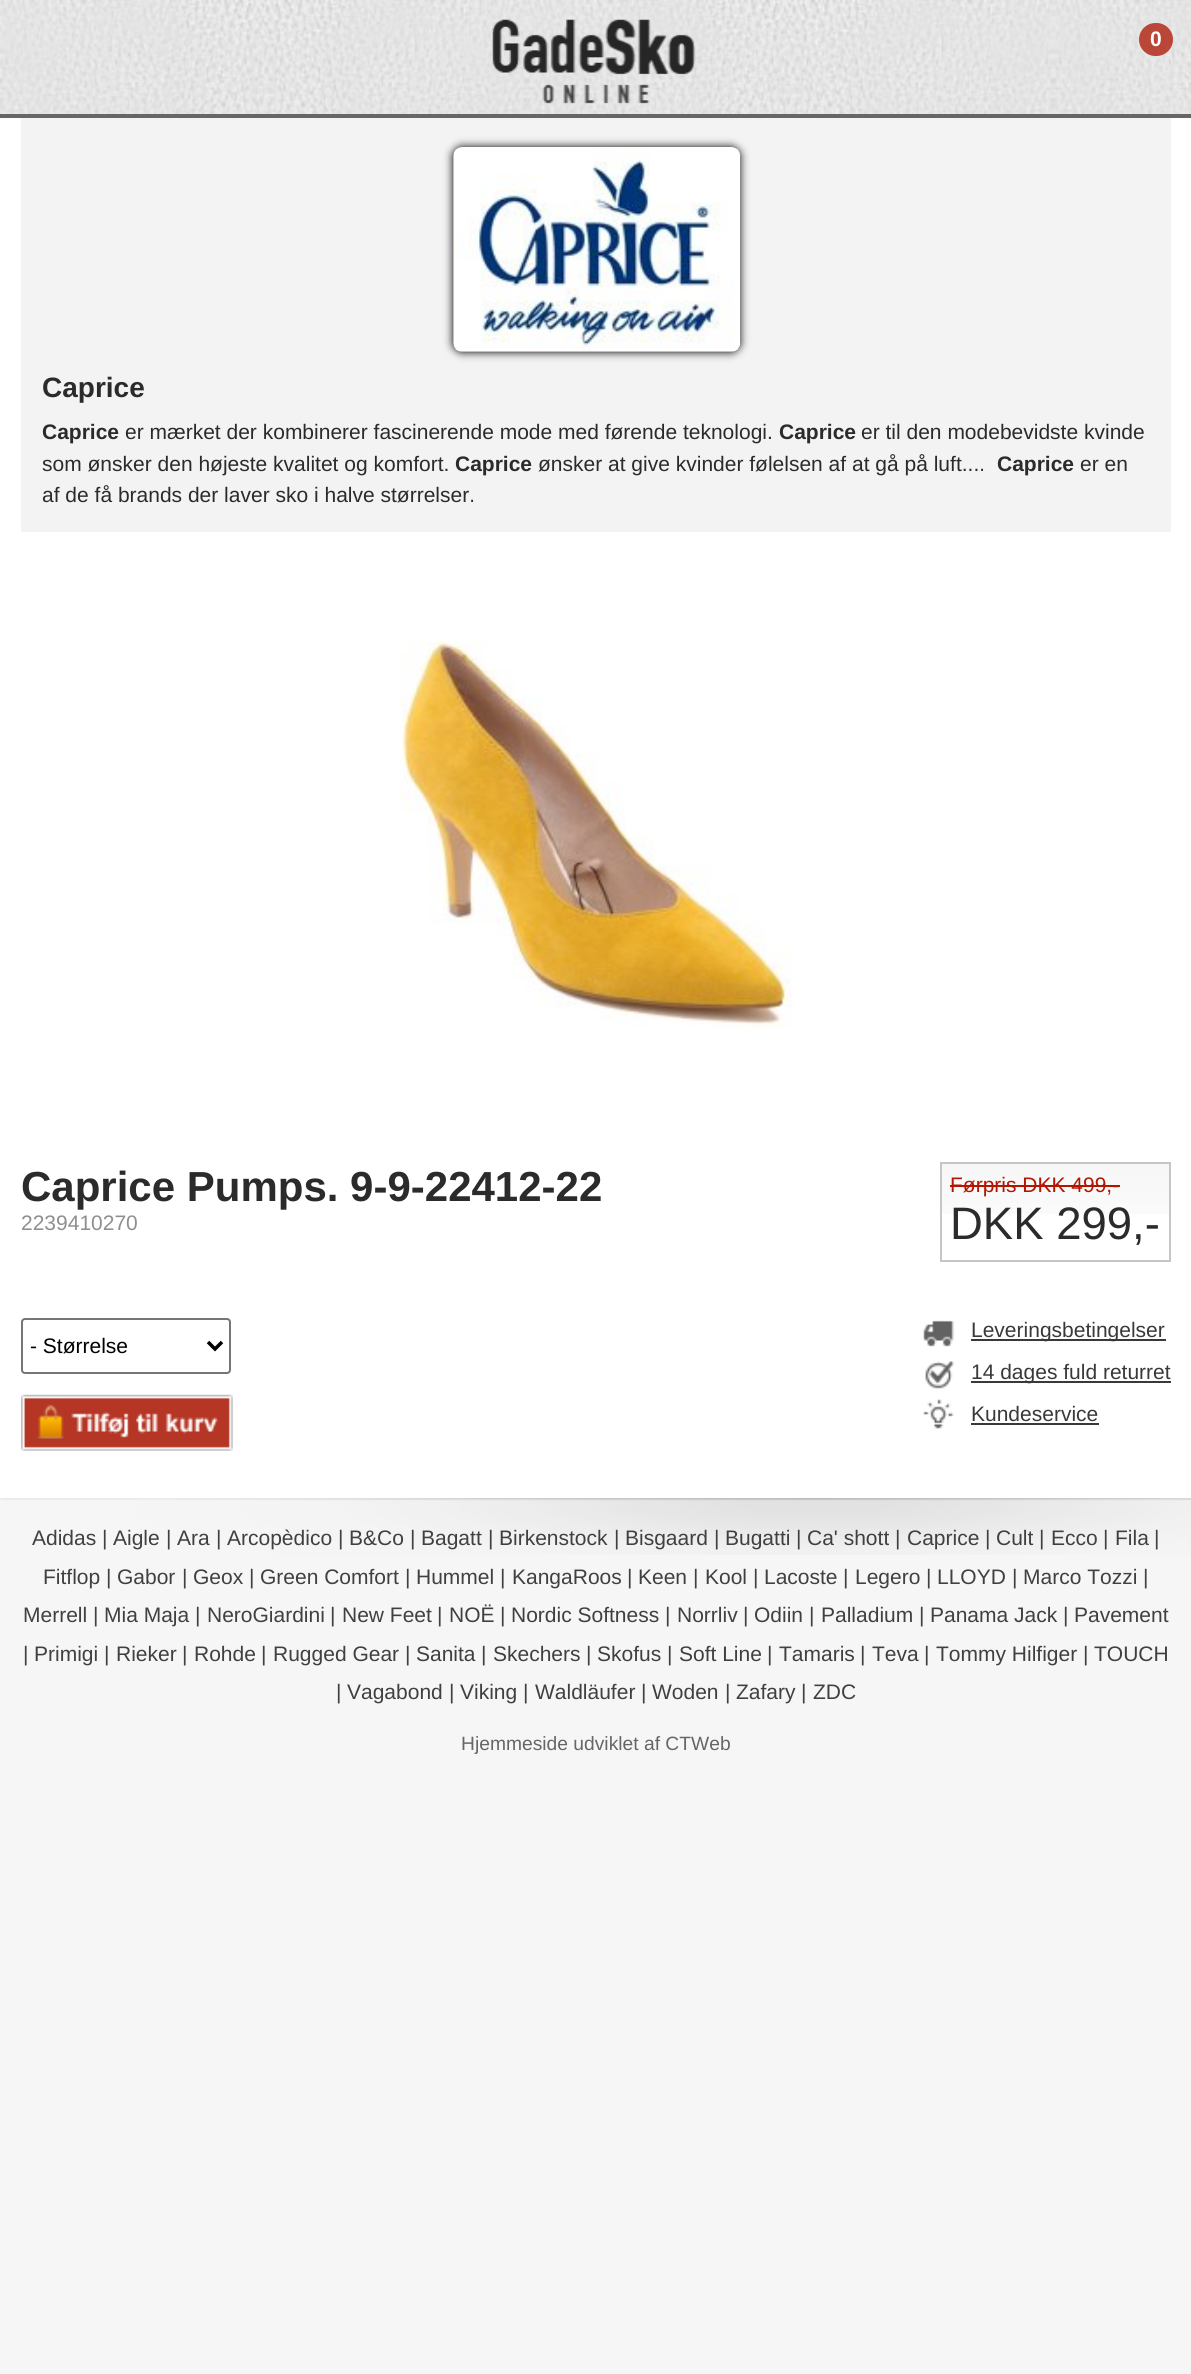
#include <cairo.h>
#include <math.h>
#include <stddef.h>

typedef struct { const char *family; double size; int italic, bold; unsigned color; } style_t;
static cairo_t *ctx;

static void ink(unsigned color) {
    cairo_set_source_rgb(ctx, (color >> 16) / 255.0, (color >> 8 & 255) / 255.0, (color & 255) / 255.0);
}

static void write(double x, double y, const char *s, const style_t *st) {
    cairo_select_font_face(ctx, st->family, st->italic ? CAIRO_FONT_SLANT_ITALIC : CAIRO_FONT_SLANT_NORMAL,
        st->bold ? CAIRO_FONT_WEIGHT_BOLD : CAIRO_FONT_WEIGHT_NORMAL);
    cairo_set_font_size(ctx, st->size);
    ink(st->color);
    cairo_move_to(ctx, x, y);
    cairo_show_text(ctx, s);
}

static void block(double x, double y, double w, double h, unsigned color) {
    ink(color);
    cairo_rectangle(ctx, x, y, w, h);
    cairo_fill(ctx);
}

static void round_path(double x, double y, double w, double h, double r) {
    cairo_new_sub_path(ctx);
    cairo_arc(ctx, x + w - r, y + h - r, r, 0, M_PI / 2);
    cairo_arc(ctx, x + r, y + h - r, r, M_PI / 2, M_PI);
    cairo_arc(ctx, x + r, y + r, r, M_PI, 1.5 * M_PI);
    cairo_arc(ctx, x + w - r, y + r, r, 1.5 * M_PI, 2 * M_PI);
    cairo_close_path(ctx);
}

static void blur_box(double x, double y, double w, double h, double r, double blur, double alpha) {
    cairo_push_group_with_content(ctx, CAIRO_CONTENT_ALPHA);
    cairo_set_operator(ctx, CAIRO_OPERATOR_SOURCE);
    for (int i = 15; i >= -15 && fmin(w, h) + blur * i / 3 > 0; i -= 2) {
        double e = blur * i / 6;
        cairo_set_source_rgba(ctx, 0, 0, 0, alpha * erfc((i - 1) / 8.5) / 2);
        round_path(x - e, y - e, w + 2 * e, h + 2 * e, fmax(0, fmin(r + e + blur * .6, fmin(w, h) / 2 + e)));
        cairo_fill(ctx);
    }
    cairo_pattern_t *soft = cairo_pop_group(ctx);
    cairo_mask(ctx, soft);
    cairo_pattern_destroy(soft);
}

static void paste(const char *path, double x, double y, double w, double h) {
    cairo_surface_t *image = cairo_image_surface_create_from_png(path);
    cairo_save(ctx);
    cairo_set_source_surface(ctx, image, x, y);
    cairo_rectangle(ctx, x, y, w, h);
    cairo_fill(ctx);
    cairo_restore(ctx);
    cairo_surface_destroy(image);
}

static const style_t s1 = {"Liberation Sans", 21, 0, 1, 0xffffff};
static const style_t s2 = {"Liberation Sans", 28, 0, 1, 0x2b2b2b};
static const style_t s3 = {"Liberation Sans", 21, 0, 1, 0x2b2b2b};
static const style_t s4 = {"Liberation Sans", 21, 0, 0, 0x2b2b2b};
static const style_t s5 = {"Liberation Sans", 42, 0, 1, 0x2b2b2b};
static const style_t s6 = {"Liberation Sans", 21, 0, 0, 0x8f8f8f};
static const style_t s7 = {"Liberation Sans", 21, 0, 0, 0xb21500};
static const style_t s8 = {"Liberation Sans", 45.5, 0, 0, 0x2b2b2b};
static const style_t s9 = {"Liberation Sans", 21, 0, 0, 0x000000};
static const style_t s10 = {"Liberation Sans", 21, 0, 0, 0x393939};
static const style_t s11 = {"Liberation Sans", 21, 0, 0, 0x404040};
static const style_t s12 = {"Liberation Sans", 19.25, 0, 0, 0x666666};

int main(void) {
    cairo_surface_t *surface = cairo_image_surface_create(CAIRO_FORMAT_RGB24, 1191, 2374);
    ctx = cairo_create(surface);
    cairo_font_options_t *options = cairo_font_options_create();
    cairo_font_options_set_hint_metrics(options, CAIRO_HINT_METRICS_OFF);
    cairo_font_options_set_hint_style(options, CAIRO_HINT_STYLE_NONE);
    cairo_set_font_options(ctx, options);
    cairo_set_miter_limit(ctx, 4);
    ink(0xf6f6f6);
    cairo_paint(ctx);
    paste("pic1.png", 0, 0, 1191, 114);
    block(0, 114, 1191, 4, 0x666666);
    paste("pic2.png", 492, 19, 204, 85);
    cairo_set_source_rgba(ctx, 0.71, 0.212, 0.145, 0.9);
    round_path(1139, 23, 34, 33, 16.5);
    cairo_fill(ctx);
    write(1150, 46, "0", &s1);
    block(0, 118, 1191, 1380, 0xffffff);
    block(21, 118, 1150, 414, 0xf3f3f3);
    ink(0x000000);
    blur_box(453, 147, 287, 205, 9, 4.5, 1);
    paste("pic3.png", 453, 147, 288, 205);
    write(42, 397, "Caprice", &s2);
    write(42, 439, "Caprice", &s3);
    write(125, 439, "er mærket der kombinerer fascinerende mode med førende teknologi.", &s4);
    write(779, 439, "Caprice", &s3);
    write(861, 439, "er til den modebevidste kvinde", &s4);
    write(42, 471, "som ønsker den højeste kvalitet og komfort.", &s4);
    write(455, 471, "Caprice", &s3);
    write(538, 471, "ønsker at give kvinder følelsen af at gå på luft....", &s4);
    write(997, 471, "Caprice", &s3);
    write(1080, 471, "er en", &s4);
    write(42, 502, "af de få brands der laver sko i halve størrelser.", &s4);
    paste("pic4.png", 400, 640, 393, 388);
    write(21, 1201, "Caprice Pumps. 9-9-22412-22", &s5);
    write(21, 1230, "2239410270", &s6);
    paste("pic5.png", 942, 1164, 227, 50);
    cairo_rectangle(ctx, 941, 1163, 229, 98);
    ink(0xc6c6c6);
    cairo_stroke(ctx);
    write(950, 1192, "Førpris DKK 499,-", &s7);
    block(950, 1185, 170, 2, 0xb21500);
    write(950, 1239, "DKK 299,-", &s8);
    round_path(22, 1319, 208, 54, 3);
    ink(0x767676);
    cairo_stroke(ctx);
    cairo_new_path(ctx);
    cairo_move_to(ctx, 208, 1342);
    cairo_line_to(ctx, 215, 1349);
    cairo_line_to(ctx, 222, 1342);
    ink(0x000000);
    cairo_set_line_width(ctx, 3.5);
    cairo_stroke(ctx);
    write(30, 1353, "- Størrelse", &s9);
    paste("pic6.png", 21, 1394, 212, 57);
    paste("pic7.png", 923, 1320, 32, 27);
    block(971, 1339, 195, 2, 0x393939);
    write(971, 1337, "Leveringsbetingelser", &s10);
    paste("pic8.png", 925, 1361, 30, 29);
    block(971, 1381, 200, 2, 0x393939);
    write(971, 1379, "14 dages fuld returret", &s10);
    paste("pic9.png", 923, 1399, 31, 30);
    write(971, 1421, "Kundeservice", &s10);
    block(971, 1423, 128, 2, 0x393939);
    paste("pic10.png", 0, 1498, 1191, 57);
    write(32, 1545, "Adidas", &s11);
    write(102, 1545, "|", &s11);
    write(113, 1545, "Aigle", &s11);
    write(166, 1545, "|", &s11);
    write(177, 1545, "Ara", &s11);
    write(216, 1545, "|", &s11);
    write(227, 1545, "Arcopèdico", &s11);
    write(338, 1545, "|", &s11);
    write(349, 1545, "B&Co", &s11);
    write(410, 1545, "|", &s11);
    write(421, 1545, "Bagatt", &s11);
    write(488, 1545, "|", &s11);
    write(499, 1545, "Birkenstock", &s11);
    write(614, 1545, "|", &s11);
    write(625, 1545, "Bisgaard", &s11);
    write(714, 1545, "|", &s11);
    write(725, 1545, "Bugatti", &s11);
    write(796, 1545, "|", &s11);
    write(807, 1545, "Ca' shott", &s11);
    write(895, 1545, "|", &s11);
    write(907, 1545, "Caprice", &s11);
    write(985, 1545, "|", &s11);
    write(996, 1545, "Cult", &s11);
    write(1039, 1545, "|", &s11);
    write(1051, 1545, "Ecco", &s11);
    write(1103, 1545, "|", &s11);
    write(1115, 1545, "Fila", &s11);
    write(1154, 1545, "|", &s11);
    write(43, 1584, "Fitflop", &s11);
    write(106, 1584, "|", &s11);
    write(117, 1584, "Gabor", &s11);
    write(182, 1584, "|", &s11);
    write(193, 1584, "Geox", &s11);
    write(249, 1584, "|", &s11);
    write(260, 1584, "Green Comfort", &s11);
    write(405, 1584, "|", &s11);
    write(416, 1584, "Hummel", &s11);
    write(500, 1584, "|", &s11);
    write(512, 1584, "KangaRoos", &s11);
    write(627, 1584, "|", &s11);
    write(638, 1584, "Keen", &s11);
    write(693, 1584, "|", &s11);
    write(705, 1584, "Kool", &s11);
    write(753, 1584, "|", &s11);
    write(764, 1584, "Lacoste", &s11);
    write(843, 1584, "|", &s11);
    write(855, 1584, "Legero", &s11);
    write(926, 1584, "|", &s11);
    write(937, 1584, "LLOYD", &s11);
    write(1012, 1584, "|", &s11);
    write(1023, 1584, "Marco Tozzi", &s11);
    write(1143, 1584, "|", &s11);
    write(23, 1622, "Merrell", &s11);
    write(93, 1622, "|", &s11);
    write(104, 1622, "Mia Maja", &s11);
    write(195, 1622, "|", &s11);
    write(207, 1622, "NeroGiardini", &s11);
    write(330, 1622, "|", &s11);
    write(342, 1622, "New Feet", &s11);
    write(437, 1622, "|", &s11);
    write(449, 1622, "NOË", &s11);
    write(500, 1622, "|", &s11);
    write(511, 1622, "Nordic Softness", &s11);
    write(665, 1622, "|", &s11);
    write(677, 1622, "Norrliv", &s11);
    write(743, 1622, "|", &s11);
    write(754, 1622, "Odiin", &s11);
    write(809, 1622, "|", &s11);
    write(821, 1622, "Palladium", &s11);
    write(919, 1622, "|", &s11);
    write(930, 1622, "Panama Jack", &s11);
    write(1063, 1622, "|", &s11);
    write(1074, 1622, "Pavement", &s11);
    write(23, 1661, "|", &s11);
    write(34, 1661, "Primigi", &s11);
    write(104, 1661, "|", &s11);
    write(116, 1661, "Rieker", &s11);
    write(182, 1661, "|", &s11);
    write(194, 1661, "Rohde", &s11);
    write(261, 1661, "|", &s11);
    write(273, 1661, "Rugged Gear", &s11);
    write(405, 1661, "|", &s11);
    write(416, 1661, "Sanita", &s11);
    write(481, 1661, "|", &s11);
    write(493, 1661, "Skechers", &s11);
    write(586, 1661, "|", &s11);
    write(597, 1661, "Skofus", &s11);
    write(667, 1661, "|", &s11);
    write(679, 1661, "Soft Line", &s11);
    write(767, 1661, "|", &s11);
    write(779, 1661, "Tamaris", &s11);
    write(860, 1661, "|", &s11);
    write(872, 1661, "Teva", &s11);
    write(924, 1661, "|", &s11);
    write(936, 1661, "Tommy Hilfiger", &s11);
    write(1083, 1661, "|", &s11);
    write(1094, 1661, "TOUCH", &s11);
    write(336, 1699, "|", &s11);
    write(347, 1699, "Vagabond", &s11);
    write(449, 1699, "|", &s11);
    write(460, 1699, "Viking", &s11);
    write(523, 1699, "|", &s11);
    write(535, 1699, "Waldläufer", &s11);
    write(641, 1699, "|", &s11);
    write(652, 1699, "Woden", &s11);
    write(725, 1699, "|", &s11);
    write(736, 1699, "Zafary", &s11);
    write(801, 1699, "|", &s11);
    write(813, 1699, "ZDC", &s11);
    write(461, 1750, "Hjemmeside udviklet af CTWeb", &s12);
    cairo_surface_write_to_png(surface, "screenshot.png");
    cairo_font_options_destroy(options);
    cairo_destroy(ctx);
    cairo_surface_destroy(surface);
    return 0;
}
